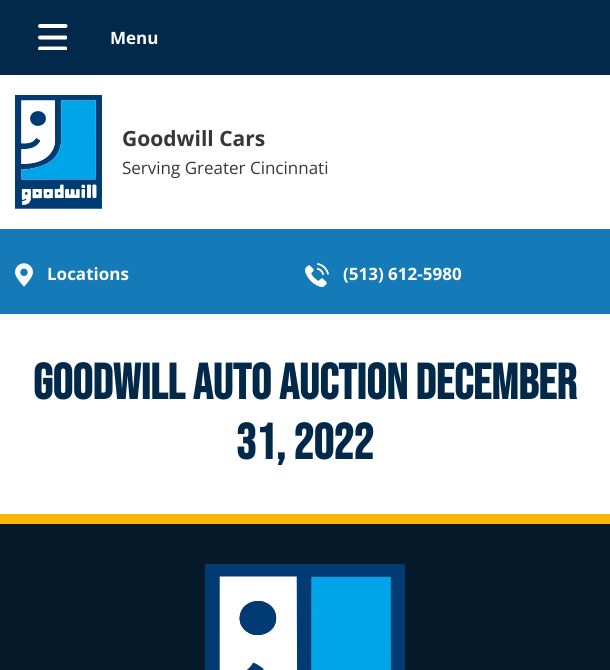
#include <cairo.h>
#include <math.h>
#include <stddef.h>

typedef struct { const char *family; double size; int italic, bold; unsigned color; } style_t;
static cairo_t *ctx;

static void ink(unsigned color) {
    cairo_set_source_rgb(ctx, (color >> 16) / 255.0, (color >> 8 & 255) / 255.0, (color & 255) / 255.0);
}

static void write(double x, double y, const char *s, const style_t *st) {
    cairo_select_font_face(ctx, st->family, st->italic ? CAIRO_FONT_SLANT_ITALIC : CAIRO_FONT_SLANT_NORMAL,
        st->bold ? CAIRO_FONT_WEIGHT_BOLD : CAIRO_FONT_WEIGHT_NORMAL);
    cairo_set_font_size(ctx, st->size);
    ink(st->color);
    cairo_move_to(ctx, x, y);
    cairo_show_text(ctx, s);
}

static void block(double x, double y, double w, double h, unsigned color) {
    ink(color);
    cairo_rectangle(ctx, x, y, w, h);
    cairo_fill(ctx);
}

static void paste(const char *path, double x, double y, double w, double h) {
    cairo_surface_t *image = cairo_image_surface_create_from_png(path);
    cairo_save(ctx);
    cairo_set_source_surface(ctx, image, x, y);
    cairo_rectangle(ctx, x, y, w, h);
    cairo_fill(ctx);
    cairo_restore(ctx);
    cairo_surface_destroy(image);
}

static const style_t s1 = {"Open Sans", 17, 0, 1, 0xffffff};
static const style_t s2 = {"Open Sans", 21, 0, 1, 0x373738};
static const style_t s3 = {"Open Sans", 17, 0, 0, 0x373738};
static const style_t s4 = {"Bebas Neue", 50, 0, 1, 0x02284a};

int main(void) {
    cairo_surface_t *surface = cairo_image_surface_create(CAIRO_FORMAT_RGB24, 610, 670);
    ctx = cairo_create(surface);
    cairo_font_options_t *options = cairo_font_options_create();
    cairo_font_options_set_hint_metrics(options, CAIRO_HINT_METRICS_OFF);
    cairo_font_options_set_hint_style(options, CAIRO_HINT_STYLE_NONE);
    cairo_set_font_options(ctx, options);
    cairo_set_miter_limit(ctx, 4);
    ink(0xffffff);
    cairo_paint(ctx);
    block(0, 0, 610, 75, 0x02284a);
    cairo_new_path(ctx);
    cairo_move_to(ctx, 40, 26);
    cairo_line_to(ctx, 65.5, 26);
    ink(0xffffff);
    cairo_set_line_width(ctx, 4);
    cairo_set_line_cap(ctx, CAIRO_LINE_CAP_ROUND);
    cairo_stroke(ctx);
    cairo_save(ctx);
    cairo_rectangle(ctx, 38, 24, 29, 26);
    cairo_clip(ctx);
    cairo_new_path(ctx);
    cairo_move_to(ctx, 40, 37.5);
    cairo_line_to(ctx, 65.5, 37.5);
    cairo_move_to(ctx, 40, 48.5);
    cairo_line_to(ctx, 65.5, 48.5);
    cairo_stroke(ctx);
    cairo_restore(ctx);
    write(110, 44, "Menu", &s1);
    paste("pic1.png", 15, 95, 87, 114);
    write(122, 146, "Goodwill Cars", &s2);
    write(122, 174, "Serving Greater Cincinnati", &s3);
    block(0, 229, 610, 85, 0x147ab8);
    paste("pic2.png", 15, 263, 18, 24);
    write(47, 280, "Locations", &s1);
    paste("pic3.png", 305, 263, 24, 24);
    write(343, 280, "(513) 612-5980", &s1);
    write(33, 399, "Goodwill Auto Auction December", &s4);
    write(236, 459, "31, 2022", &s4);
    block(0, 524, 610, 146, 0x061a2c);
    block(0, 514, 610, 10, 0xfdb603);
    paste("pic4.png", 205, 564, 200, 106);
    cairo_surface_write_to_png(surface, "screenshot.png");
    cairo_font_options_destroy(options);
    cairo_destroy(ctx);
    cairo_surface_destroy(surface);
    return 0;
}
